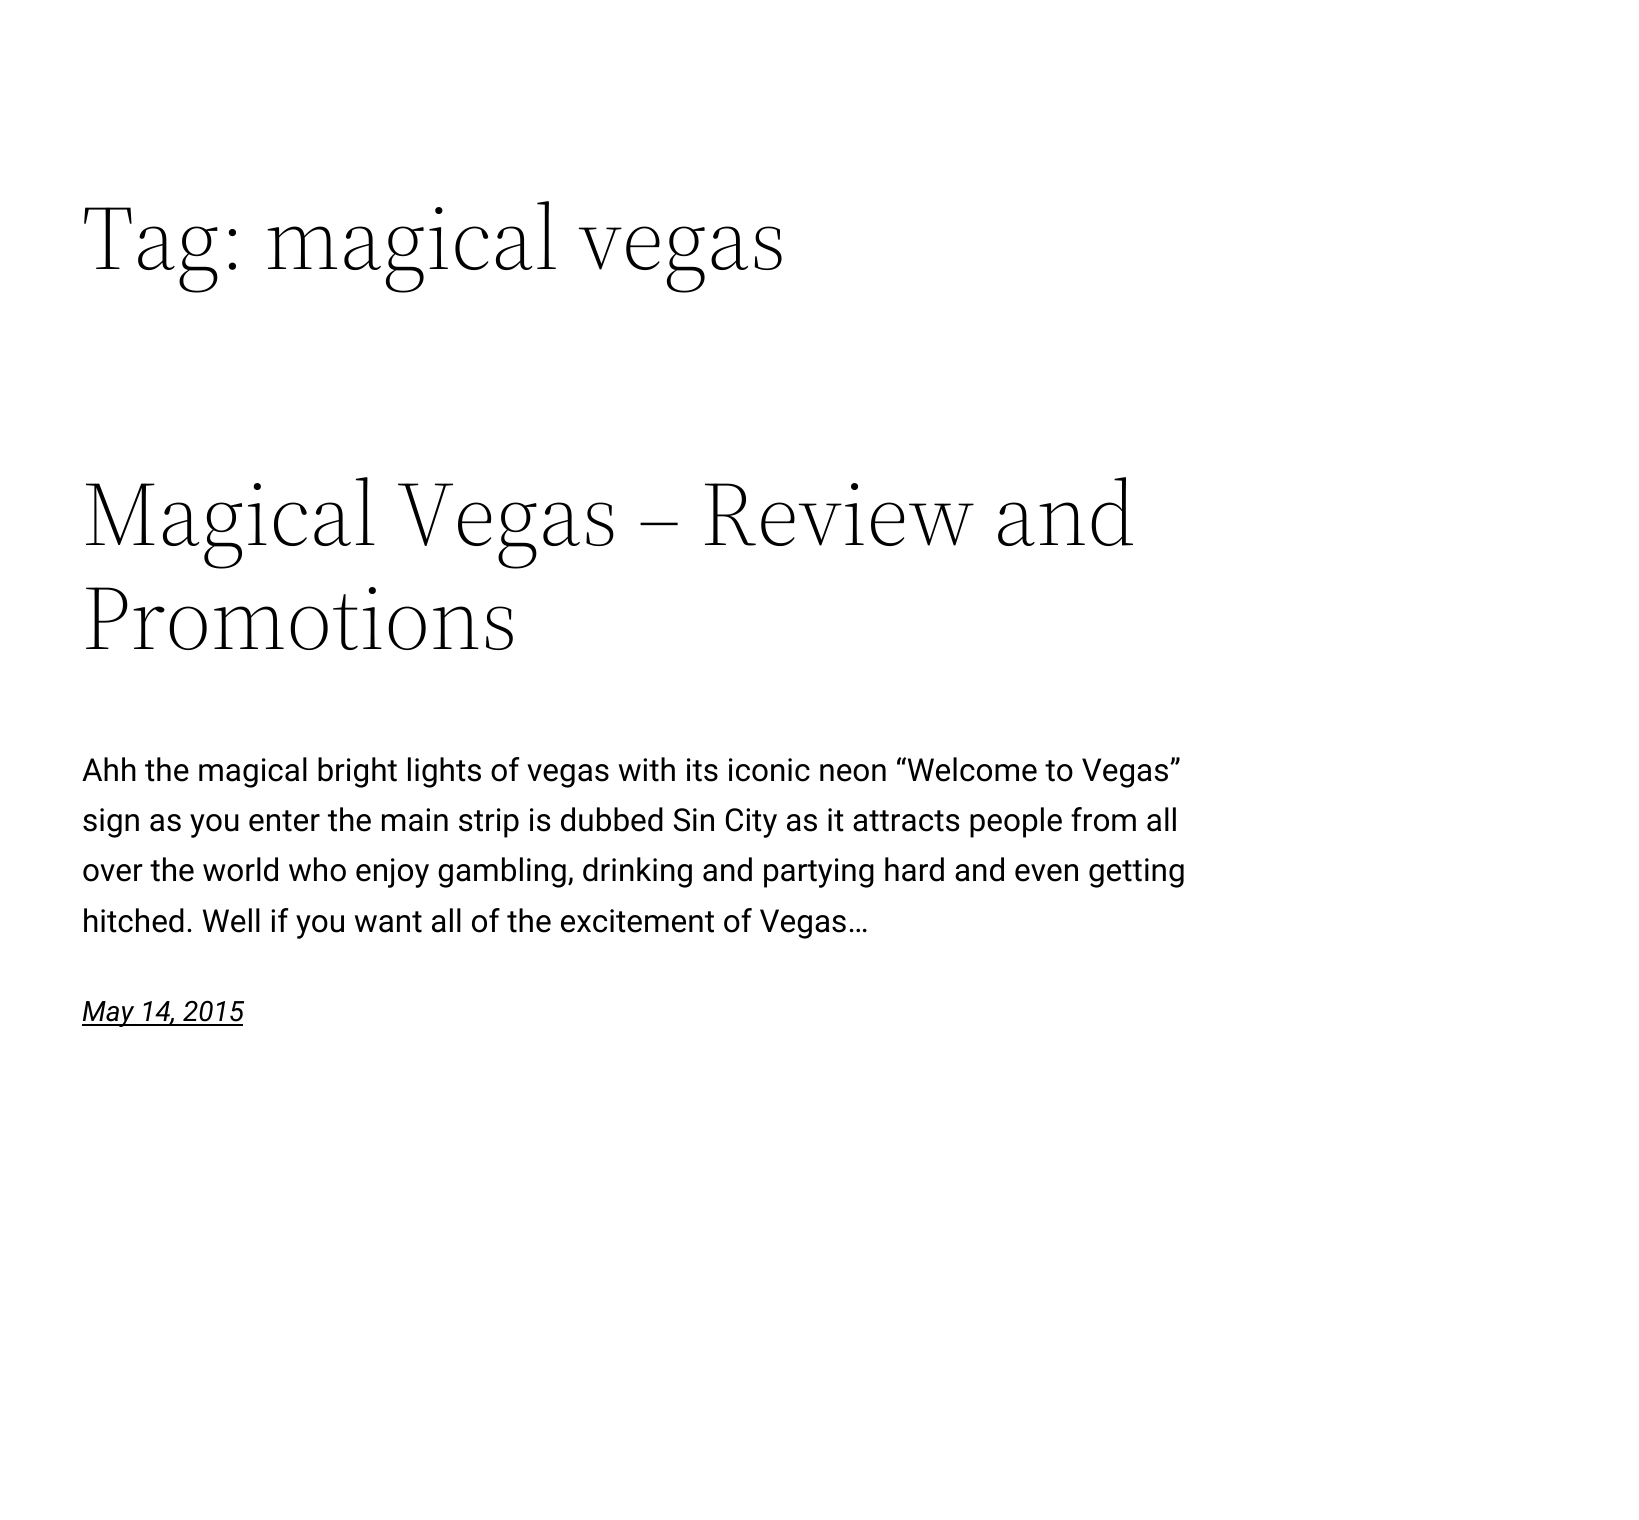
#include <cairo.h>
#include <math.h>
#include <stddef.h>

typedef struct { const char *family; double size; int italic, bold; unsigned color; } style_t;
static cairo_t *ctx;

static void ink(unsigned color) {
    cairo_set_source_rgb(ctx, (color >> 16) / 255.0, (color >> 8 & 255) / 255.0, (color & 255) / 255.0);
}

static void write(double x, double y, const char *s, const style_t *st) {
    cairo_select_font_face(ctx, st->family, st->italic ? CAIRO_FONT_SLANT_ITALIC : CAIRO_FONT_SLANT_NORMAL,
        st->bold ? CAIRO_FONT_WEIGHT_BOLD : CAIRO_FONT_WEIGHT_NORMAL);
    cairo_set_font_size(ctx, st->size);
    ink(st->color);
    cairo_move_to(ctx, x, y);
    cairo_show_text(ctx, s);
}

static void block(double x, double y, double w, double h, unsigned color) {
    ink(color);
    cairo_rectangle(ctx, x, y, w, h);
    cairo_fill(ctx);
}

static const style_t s1 = {"Source Serif 4 Light", 91, 0, 0, 0x000000};
static const style_t s2 = {"Roboto", 31.5, 0, 0, 0x000000};
static const style_t s3 = {"Roboto", 28, 1, 0, 0x000000};

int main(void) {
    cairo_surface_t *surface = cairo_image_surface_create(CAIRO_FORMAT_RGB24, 1639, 1520);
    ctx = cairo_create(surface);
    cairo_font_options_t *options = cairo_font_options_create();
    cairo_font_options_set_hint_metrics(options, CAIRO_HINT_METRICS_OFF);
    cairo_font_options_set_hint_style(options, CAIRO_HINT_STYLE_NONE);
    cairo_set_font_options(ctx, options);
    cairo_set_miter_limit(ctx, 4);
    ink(0xffffff);
    cairo_paint(ctx);
    write(82, 269, "Tag: magical vegas", &s1);
    write(82, 545, "Magical Vegas – Review and", &s1);
    write(82, 649, "Promotions", &s1);
    write(82, 781, "Ahh the magical bright lights of vegas with its iconic neon “Welcome to Vegas”", &s2);
    write(82, 831, "sign as you enter the main strip is dubbed Sin City as it attracts people from all", &s2);
    write(82, 881, "over the world who enjoy gambling, drinking and partying hard and even getting", &s2);
    write(82, 932, "hitched. Well if you want all of the excitement of Vegas…", &s2);
    block(82, 1024, 161, 2, 0x000000);
    write(82, 1021, "May 14, 2015", &s3);
    cairo_surface_write_to_png(surface, "screenshot.png");
    cairo_font_options_destroy(options);
    cairo_destroy(ctx);
    cairo_surface_destroy(surface);
    return 0;
}
